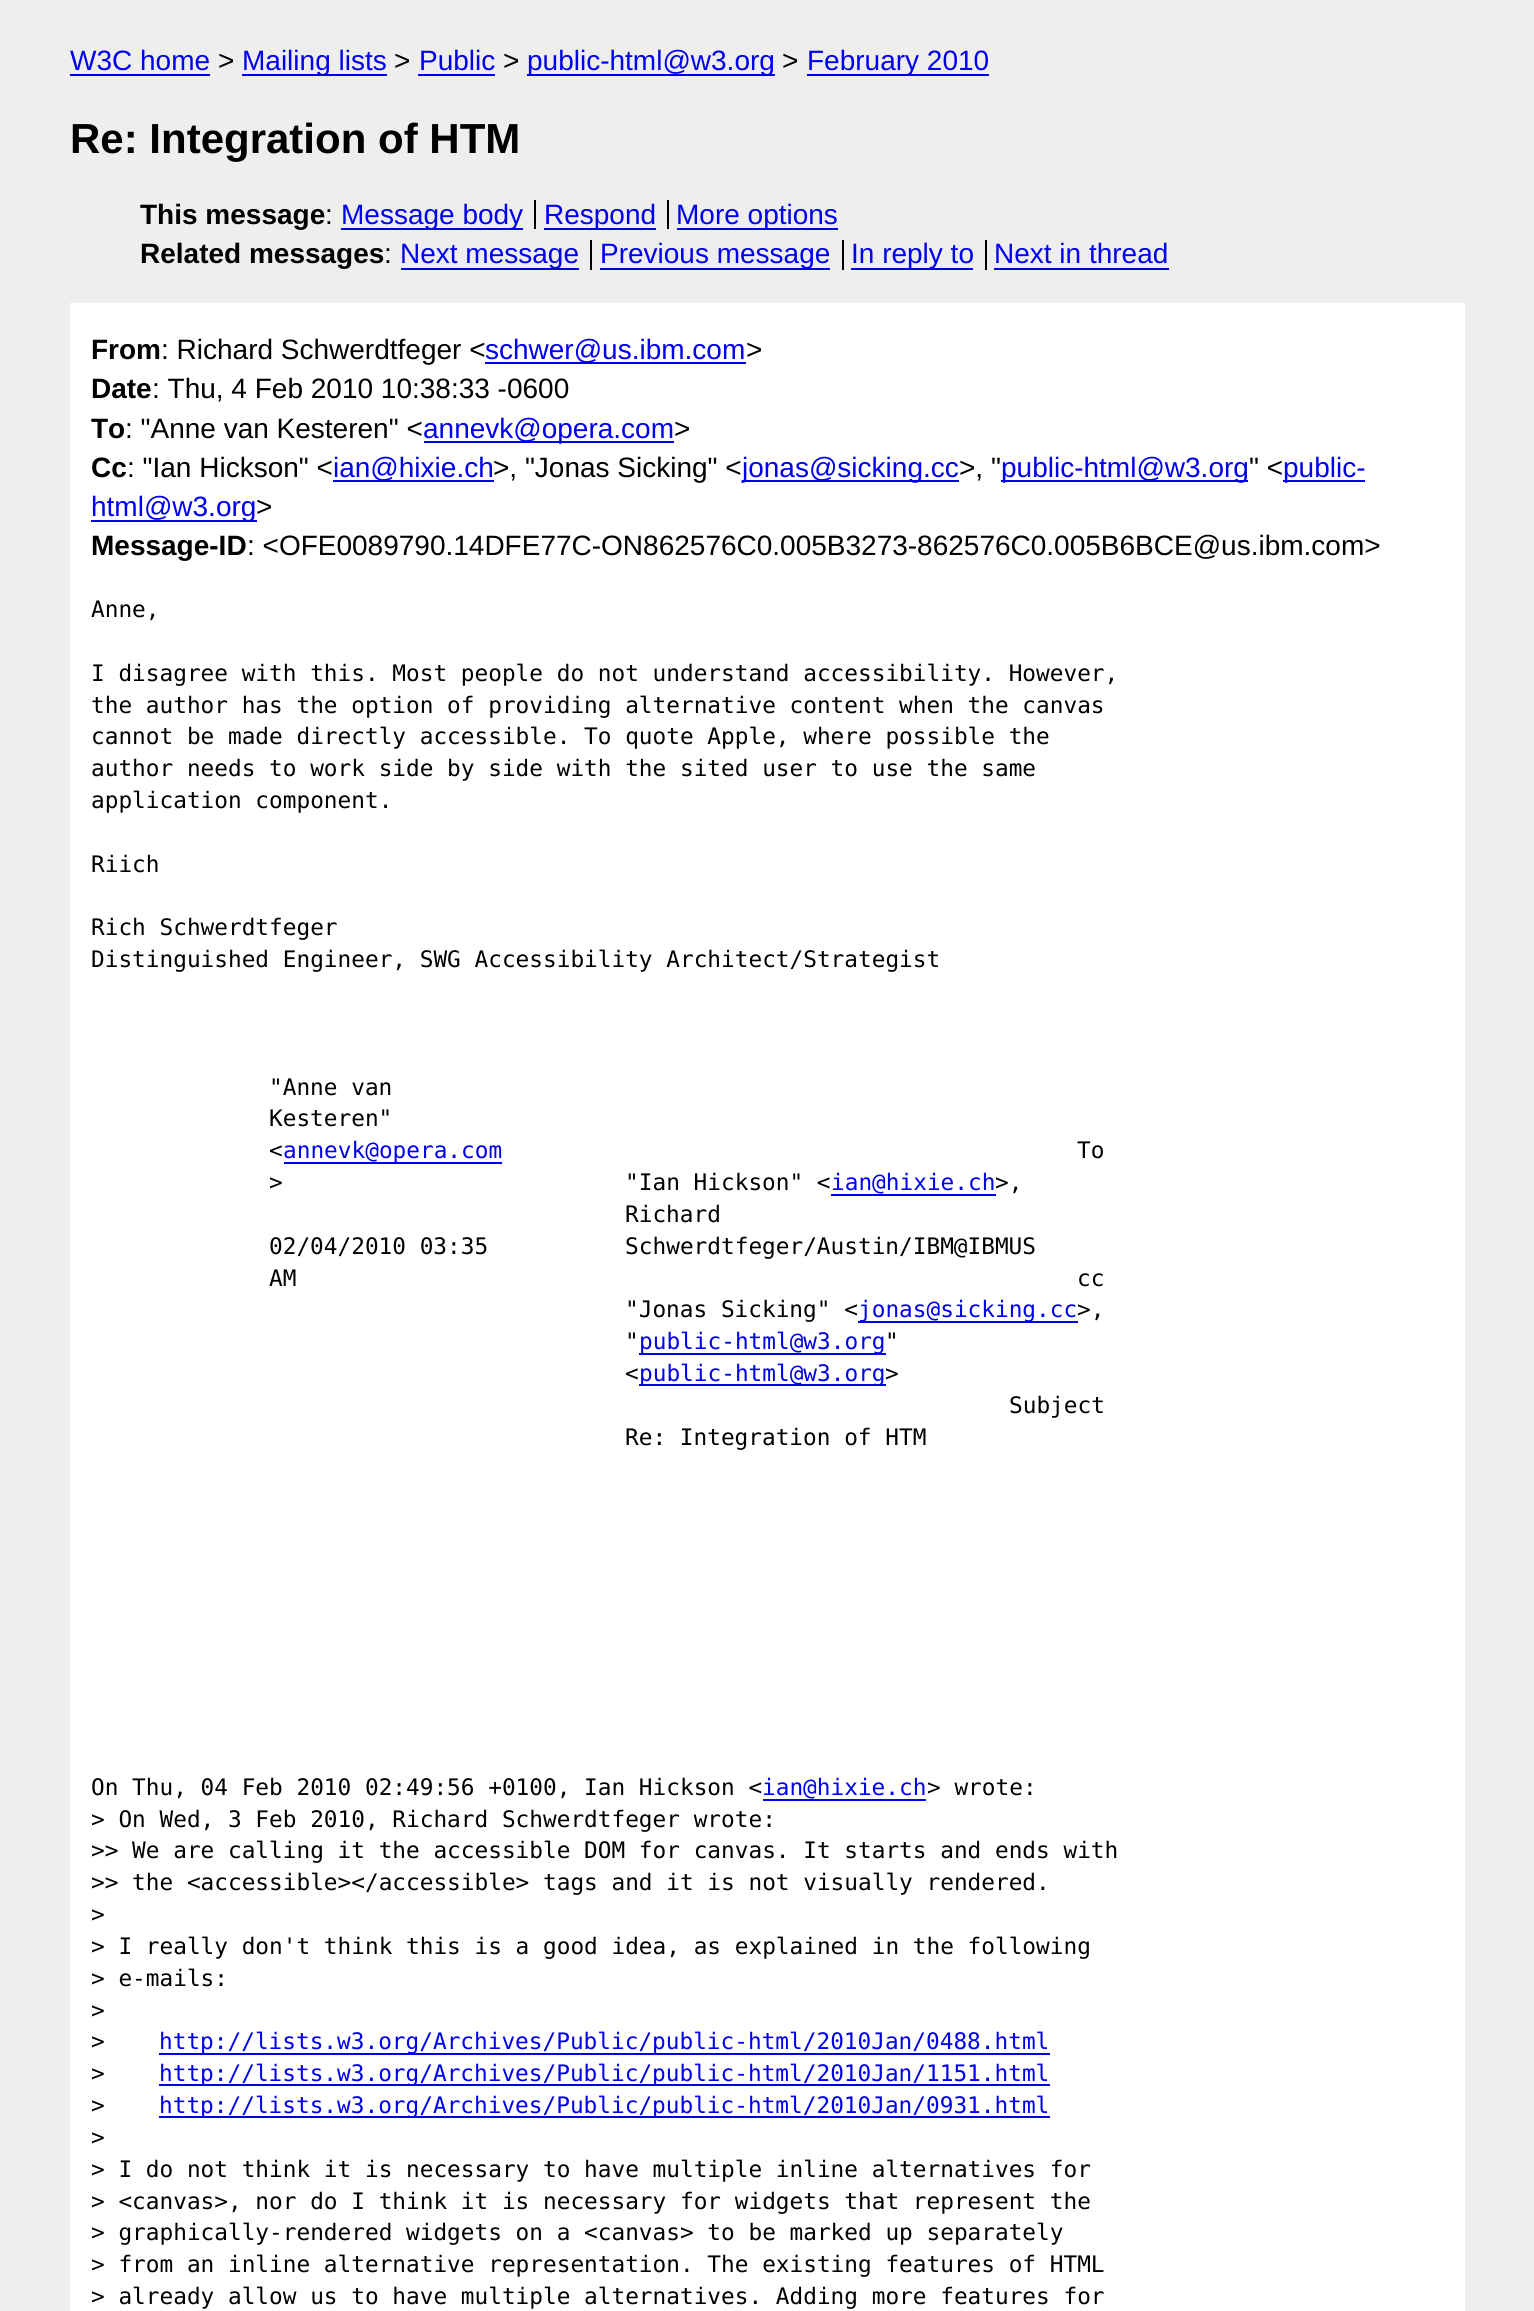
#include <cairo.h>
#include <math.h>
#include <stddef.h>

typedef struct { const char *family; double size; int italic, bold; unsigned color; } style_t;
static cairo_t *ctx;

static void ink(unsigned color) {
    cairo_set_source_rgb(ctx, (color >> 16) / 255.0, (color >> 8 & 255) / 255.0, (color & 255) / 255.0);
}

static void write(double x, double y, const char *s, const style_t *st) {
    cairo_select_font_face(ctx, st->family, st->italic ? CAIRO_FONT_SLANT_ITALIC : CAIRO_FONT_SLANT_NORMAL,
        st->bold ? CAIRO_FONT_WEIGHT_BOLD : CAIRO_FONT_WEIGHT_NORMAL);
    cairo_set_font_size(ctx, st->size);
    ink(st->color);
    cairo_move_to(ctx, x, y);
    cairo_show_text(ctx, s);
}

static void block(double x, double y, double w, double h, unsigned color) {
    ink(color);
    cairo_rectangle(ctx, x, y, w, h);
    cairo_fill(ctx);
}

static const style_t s1 = {"Liberation Sans", 28, 0, 0, 0x0000ee};
static const style_t s2 = {"Liberation Sans", 28, 0, 0, 0x000000};
static const style_t s3 = {"Liberation Sans", 42, 0, 1, 0x000000};
static const style_t s4 = {"Liberation Sans", 28, 0, 1, 0x000000};
static const style_t s5 = {"DejaVu Sans Mono", 22.75, 0, 0, 0x000000};
static const style_t s6 = {"DejaVu Sans Mono", 22.75, 0, 0, 0x0000ee};

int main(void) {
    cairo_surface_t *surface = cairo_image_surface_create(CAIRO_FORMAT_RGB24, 1534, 2311);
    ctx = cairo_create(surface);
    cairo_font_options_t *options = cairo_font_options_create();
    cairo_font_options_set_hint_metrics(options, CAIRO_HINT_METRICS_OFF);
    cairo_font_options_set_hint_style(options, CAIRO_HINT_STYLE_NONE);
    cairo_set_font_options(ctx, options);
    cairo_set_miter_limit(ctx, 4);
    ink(0xeeeeee);
    cairo_paint(ctx);
    write(70, 70, "W3C home", &s1);
    block(70, 74, 140, 2, 0x0000ee);
    write(218, 70, ">", &s2);
    block(242, 74, 145, 2, 0x0000ee);
    write(242, 70, "Mailing lists", &s1);
    write(394, 70, ">", &s2);
    write(419, 70, "Public", &s1);
    block(418, 74, 77, 2, 0x0000ee);
    write(503, 70, ">", &s2);
    block(527, 74, 248, 2, 0x0000ee);
    write(527, 70, "public-html@w3.org", &s1);
    write(782, 70, ">", &s2);
    block(807, 74, 182, 2, 0x0000ee);
    write(807, 70, "February 2010", &s1);
    write(70, 153, "Re: Integration of HTM", &s3);
    write(140, 224, "This message", &s4);
    write(325, 224, ":", &s2);
    block(341, 228, 182, 2, 0x0000ee);
    write(341, 224, "Message body", &s1);
    block(544, 228, 112, 2, 0x0000ee);
    write(544, 224, "Respond", &s1);
    block(534, 200, 2, 29, 0x000000);
    block(677, 228, 161, 2, 0x0000ee);
    write(676, 224, "More options", &s1);
    block(667, 200, 2, 29, 0x000000);
    write(140, 263, "Related messages", &s4);
    write(384, 263, ":", &s2);
    block(401, 268, 178, 2, 0x0000ee);
    write(400, 263, "Next message", &s1);
    block(600, 268, 230, 2, 0x0000ee);
    write(600, 263, "Previous message", &s1);
    block(590, 240, 2, 30, 0x000000);
    block(851, 268, 122, 2, 0x0000ee);
    write(851, 263, "In reply to", &s1);
    block(842, 240, 2, 30, 0x000000);
    block(985, 240, 2, 30, 0x000000);
    write(994, 263, "Next in thread", &s1);
    block(994, 268, 175, 2, 0x0000ee);
    block(70, 303, 1395, 2008, 0xffffff);
    write(91, 359, "From", &s4);
    write(161, 359, ": Richard Schwerdtfeger <", &s2);
    block(485, 362, 261, 2, 0x0000ee);
    write(485, 359, "schwer@us.ibm.com", &s1);
    write(746, 359, ">", &s2);
    write(91, 398, "Date", &s4);
    write(152, 398, ": Thu, 4 Feb 2010 10:38:33 -0600", &s2);
    write(91, 438, "To", &s4);
    write(125, 438, ": \"Anne van Kesteren\" <", &s2);
    block(424, 441, 250, 2, 0x0000ee);
    write(423, 438, "annevk@opera.com", &s1);
    write(674, 438, ">", &s2);
    write(91, 477, "Cc", &s4);
    write(127, 477, ": \"Ian Hickson\" <", &s2);
    block(333, 480, 161, 2, 0x0000ee);
    write(333, 477, "ian@hixie.ch", &s1);
    write(493, 477, ">, \"Jonas Sicking\" <", &s2);
    block(742, 480, 217, 2, 0x0000ee);
    write(742, 477, "jonas@sicking.cc", &s1);
    write(959, 477, ">, \"", &s2);
    block(1001, 480, 247, 2, 0x0000ee);
    write(1001, 477, "public-html@w3.org", &s1);
    write(1249, 477, "\" <", &s2);
    block(1283, 480, 82, 2, 0x0000ee);
    write(1283, 477, "public-", &s1);
    block(91, 520, 166, 2, 0x0000ee);
    write(91, 516, "html@w3.org", &s1);
    write(256, 516, ">", &s2);
    write(91, 555, "Message-ID", &s4);
    write(247, 555, ": <OFE0089790.14DFE77C-ON862576C0.005B3273-862576C0.005B6BCE@us.ibm.com>", &s2);
    write(91, 617, "Anne,", &s5);
    write(91, 681, "I disagree with this. Most people do not understand accessibility. However,", &s5);
    write(91, 713, "the author has the option of providing alternative content when the canvas", &s5);
    write(91, 744, "cannot be made directly accessible. To quote Apple, where possible the", &s5);
    write(91, 776, "author needs to work side by side with the sited user to use the same", &s5);
    write(91, 808, "application component.", &s5);
    write(91, 872, "Riich", &s5);
    write(91, 935, "Rich Schwerdtfeger", &s5);
    write(91, 967, "Distinguished Engineer, SWG Accessibility Architect/Strategist", &s5);
    write(269, 1095, "\"Anne van", &s5);
    write(269, 1126, "Kesteren\"", &s5);
    write(269, 1158, "<", &s5);
    block(284, 1162, 218, 2, 0x0000ee);
    write(283, 1158, "annevk@opera.com", &s6);
    write(1077, 1158, "To", &s5);
    write(269, 1190, ">                         \"Ian Hickson\" <", &s5);
    write(831, 1190, "ian@hixie.ch", &s6);
    block(831, 1194, 165, 2, 0x0000ee);
    write(995, 1190, ">,", &s5);
    write(625, 1222, "Richard", &s5);
    write(269, 1254, "02/04/2010 03:35          Schwerdtfeger/Austin/IBM@IBMUS", &s5);
    write(269, 1286, "AM                                                         cc", &s5);
    write(625, 1317, "\"Jonas Sicking\" <", &s5);
    block(858, 1321, 220, 2, 0x0000ee);
    write(858, 1317, "jonas@sicking.cc", &s6);
    write(1077, 1317, ">,", &s5);
    write(625, 1349, "\"", &s5);
    block(639, 1353, 247, 2, 0x0000ee);
    write(639, 1349, "public-html@w3.org", &s6);
    write(885, 1349, "\"", &s5);
    write(625, 1381, "<", &s5);
    block(639, 1384, 247, 2, 0x0000ee);
    write(639, 1381, "public-html@w3.org", &s6);
    write(885, 1381, ">", &s5);
    write(1009, 1413, "Subject", &s5);
    write(625, 1445, "Re: Integration of HTM", &s5);
    write(91, 1795, "On Thu, 04 Feb 2010 02:49:56 +0100, Ian Hickson <", &s5);
    write(762, 1795, "ian@hixie.ch", &s6);
    block(763, 1799, 163, 2, 0x0000ee);
    write(927, 1795, "> wrote:", &s5);
    write(91, 1827, "> On Wed, 3 Feb 2010, Richard Schwerdtfeger wrote:", &s5);
    write(91, 1858, ">> We are calling it the accessible DOM for canvas. It starts and ends with", &s5);
    write(91, 1890, ">> the <accessible></accessible> tags and it is not visually rendered.", &s5);
    write(91, 1922, ">", &s5);
    write(91, 1954, "> I really don't think this is a good idea, as explained in the following", &s5);
    write(91, 1986, "> e-mails:", &s5);
    write(91, 2018, ">", &s5);
    write(91, 2049, ">", &s5);
    block(159, 2053, 891, 2, 0x0000ee);
    write(159, 2049, "http://lists.w3.org/Archives/Public/public-html/2010Jan/0488.html", &s6);
    write(91, 2081, ">", &s5);
    block(159, 2084, 891, 2, 0x0000ee);
    write(159, 2081, "http://lists.w3.org/Archives/Public/public-html/2010Jan/1151.html", &s6);
    write(91, 2113, ">", &s5);
    block(159, 2116, 891, 2, 0x0000ee);
    write(159, 2113, "http://lists.w3.org/Archives/Public/public-html/2010Jan/0931.html", &s6);
    write(91, 2145, ">", &s5);
    write(91, 2177, "> I do not think it is necessary to have multiple inline alternatives for", &s5);
    write(91, 2209, "> <canvas>, nor do I think it is necessary for widgets that represent the", &s5);
    write(91, 2240, "> graphically-rendered widgets on a <canvas> to be marked up separately", &s5);
    write(91, 2272, "> from an inline alternative representation. The existing features of HTML", &s5);
    write(91, 2304, "> already allow us to have multiple alternatives. Adding more features for", &s5);
    cairo_surface_write_to_png(surface, "screenshot.png");
    cairo_font_options_destroy(options);
    cairo_destroy(ctx);
    cairo_surface_destroy(surface);
    return 0;
}
